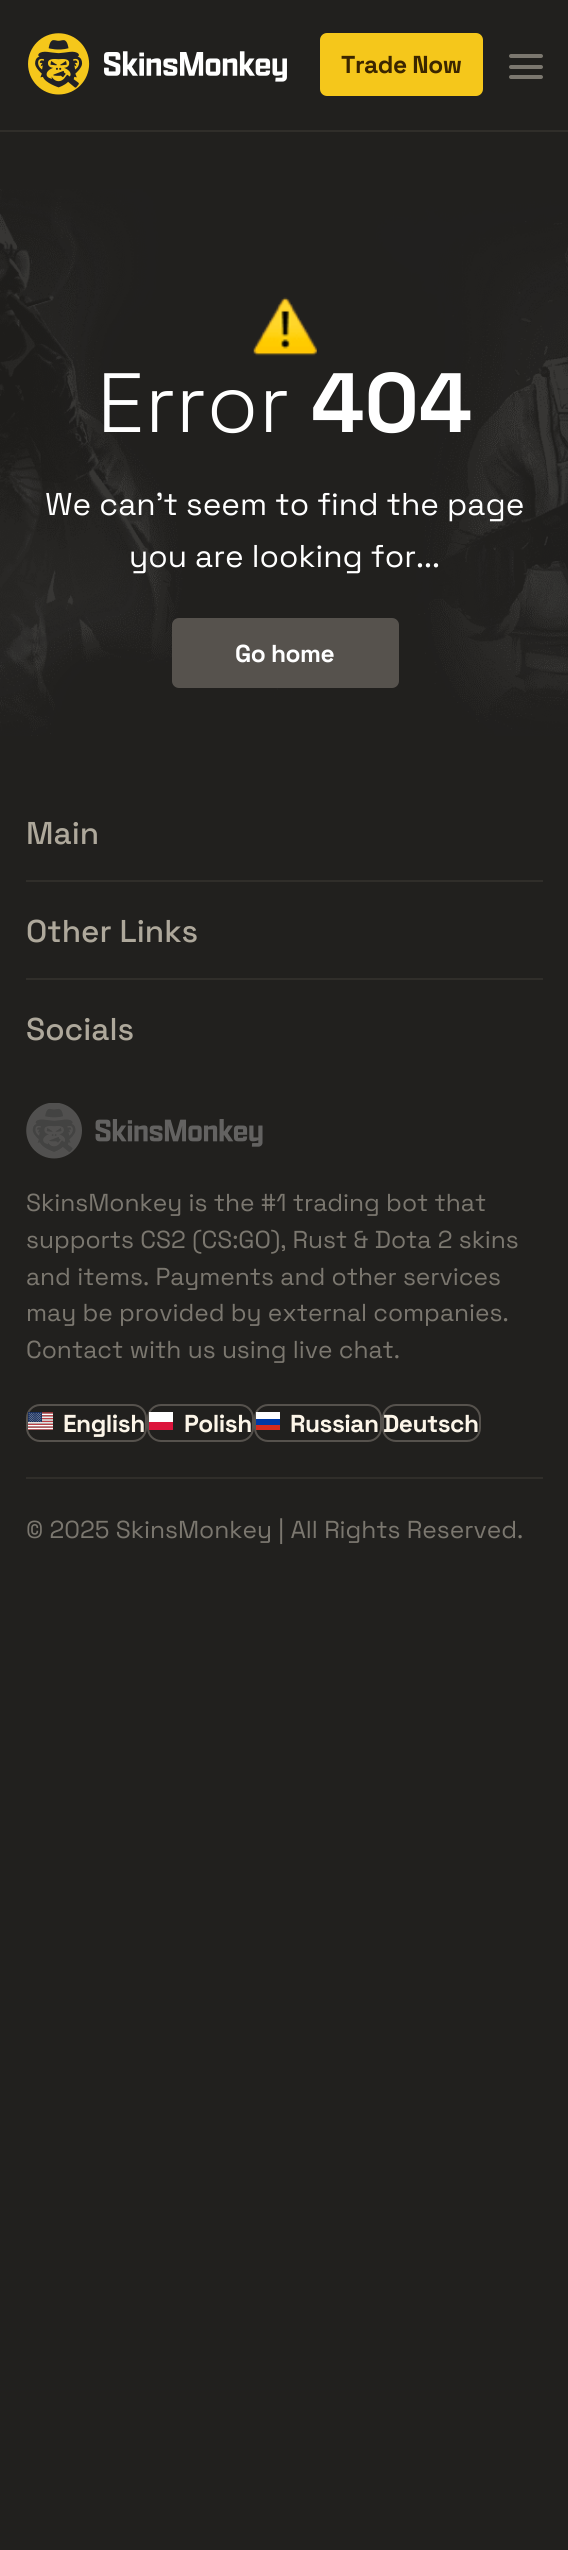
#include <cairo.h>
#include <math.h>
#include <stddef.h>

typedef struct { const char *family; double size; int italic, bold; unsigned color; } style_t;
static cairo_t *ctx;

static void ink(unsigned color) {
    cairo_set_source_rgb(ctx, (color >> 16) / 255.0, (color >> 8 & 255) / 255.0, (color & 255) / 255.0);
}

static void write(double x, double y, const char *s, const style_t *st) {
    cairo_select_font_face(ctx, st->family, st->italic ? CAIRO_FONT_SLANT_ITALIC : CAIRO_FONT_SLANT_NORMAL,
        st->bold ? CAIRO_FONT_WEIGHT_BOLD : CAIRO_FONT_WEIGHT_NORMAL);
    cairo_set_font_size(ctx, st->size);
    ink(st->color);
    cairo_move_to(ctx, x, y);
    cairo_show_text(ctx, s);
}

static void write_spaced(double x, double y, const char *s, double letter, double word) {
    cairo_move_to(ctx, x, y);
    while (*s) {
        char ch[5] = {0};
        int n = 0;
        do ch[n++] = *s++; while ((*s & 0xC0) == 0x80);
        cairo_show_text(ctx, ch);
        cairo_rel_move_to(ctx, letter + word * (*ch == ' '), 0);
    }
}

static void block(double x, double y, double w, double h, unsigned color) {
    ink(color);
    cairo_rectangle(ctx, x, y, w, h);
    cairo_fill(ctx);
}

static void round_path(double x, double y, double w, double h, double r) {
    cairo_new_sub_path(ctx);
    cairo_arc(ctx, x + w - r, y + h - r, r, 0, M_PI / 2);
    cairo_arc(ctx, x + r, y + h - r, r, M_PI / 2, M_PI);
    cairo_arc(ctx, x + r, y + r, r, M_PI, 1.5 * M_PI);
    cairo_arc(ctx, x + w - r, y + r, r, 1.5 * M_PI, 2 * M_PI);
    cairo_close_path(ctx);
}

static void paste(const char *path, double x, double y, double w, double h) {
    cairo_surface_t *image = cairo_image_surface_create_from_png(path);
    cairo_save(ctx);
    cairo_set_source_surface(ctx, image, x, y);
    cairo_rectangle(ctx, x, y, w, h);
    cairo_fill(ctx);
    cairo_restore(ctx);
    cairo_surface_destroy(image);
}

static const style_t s1 = {"Space Grotesk Light", 84, 0, 0, 0xffffff};
static const style_t s2 = {"Space Grotesk", 84, 0, 1, 0xffffff};
static const style_t s3 = {"Space Grotesk", 31.5, 0, 0, 0xffffff};
static const style_t s4 = {"Space Grotesk Medium", 31.5, 0, 0, 0xaea89b};
static const style_t s5 = {"Space Grotesk", 24.5, 0, 0, 0x7b776f};

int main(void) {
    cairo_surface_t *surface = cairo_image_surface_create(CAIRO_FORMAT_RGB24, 568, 2550);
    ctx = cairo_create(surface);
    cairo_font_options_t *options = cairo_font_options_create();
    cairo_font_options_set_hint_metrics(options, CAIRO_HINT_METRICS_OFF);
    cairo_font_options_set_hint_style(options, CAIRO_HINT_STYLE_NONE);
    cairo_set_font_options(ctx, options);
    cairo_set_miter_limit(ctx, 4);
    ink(0x21201e);
    cairo_paint(ctx);
    block(0, 130, 568, 2, 0x302e2a);
    paste("pic1.png", 28, 33, 259, 62);
    ink(0xf5c71b);
    round_path(320, 33, 163, 63, 7);
    cairo_fill(ctx);
    cairo_select_font_face(ctx, "Space Grotesk", CAIRO_FONT_SLANT_NORMAL, CAIRO_FONT_WEIGHT_BOLD);
    cairo_set_font_size(ctx, 24.5);
    ink(0x3b2600);
    write_spaced(341, 73, "Trade Now", -0.5, 0);
    ink(0x7b776f);
    round_path(509, 65, 34, 4, 2);
    cairo_fill(ctx);
    round_path(509, 54, 34, 4, 2);
    cairo_fill(ctx);
    round_path(509, 75, 34, 4, 2);
    cairo_fill(ctx);
    paste("pic2.png", 0, 189, 568, 547);
    paste("pic3.png", 253, 297, 64, 59);
    write(97, 432, "Error", &s1);
    write(311, 432, "404", &s2);
    write(45, 515, "We can't seem to find the page", &s3);
    write(129, 567, "you are looking for...", &s3);
    ink(0x56524d);
    round_path(172, 618, 227, 70, 7);
    cairo_fill(ctx);
    cairo_select_font_face(ctx, "Space Grotesk", CAIRO_FONT_SLANT_NORMAL, CAIRO_FONT_WEIGHT_BOLD);
    cairo_set_font_size(ctx, 24.5);
    ink(0xffffff);
    write_spaced(235, 662, "Go home", -0.5, 0);
    write(26, 844, "Main", &s4);
    block(26, 880, 517, 2, 0x302e2a);
    write(26, 942, "Other Links", &s4);
    block(26, 978, 517, 2, 0x302e2a);
    write(26, 1040, "Socials", &s4);
    paste("pic4.png", 26, 1103, 237, 56);
    write(26, 1211, "SkinsMonkey is the #1 trading bot that", &s5);
    write(26, 1248, "supports CS2 (CS:GO), Rust & Dota 2 skins", &s5);
    write(26, 1285, "and items. Payments and other services", &s5);
    write(26, 1321, "may be provided by external companies.", &s5);
    write(26, 1358, "Contact with us using live chat.", &s5);
    round_path(27, 1405, 119, 36, 13);
    ink(0x56524d);
    cairo_stroke(ctx);
    paste("pic5.png", 28, 1412, 25, 18);
    cairo_select_font_face(ctx, "Space Grotesk", CAIRO_FONT_SLANT_NORMAL, CAIRO_FONT_WEIGHT_BOLD);
    ink(0xfcf5e8);
    write_spaced(63, 1432, "English", -0.5, 0);
    round_path(148, 1405, 105, 36, 13);
    ink(0x56524d);
    cairo_stroke(ctx);
    block(149, 1412, 24, 10, 0xffffff);
    block(149, 1422, 24, 8, 0xdc143c);
    ink(0xfcf5e8);
    write_spaced(184, 1432, "Polish", -0.5, 0);
    round_path(255, 1405, 126, 36, 13);
    ink(0x56524d);
    cairo_stroke(ctx);
    block(256, 1412, 24, 7, 0xffffff);
    block(256, 1419, 24, 6, 0x0039a6);
    block(256, 1425, 24, 5, 0xd52b1e);
    ink(0xfcf5e8);
    write_spaced(290, 1432, "Russian", -0.5, 0);
    round_path(383, 1405, 97, 36, 13);
    ink(0x56524d);
    cairo_stroke(ctx);
    ink(0xfcf5e8);
    write_spaced(383, 1432, "Deutsch", -0.5, 0);
    block(26, 1477, 517, 2, 0x302e2a);
    write(26, 1538, "© 2025 SkinsMonkey | All Rights Reserved.", &s5);
    cairo_surface_write_to_png(surface, "screenshot.png");
    cairo_font_options_destroy(options);
    cairo_destroy(ctx);
    cairo_surface_destroy(surface);
    return 0;
}
